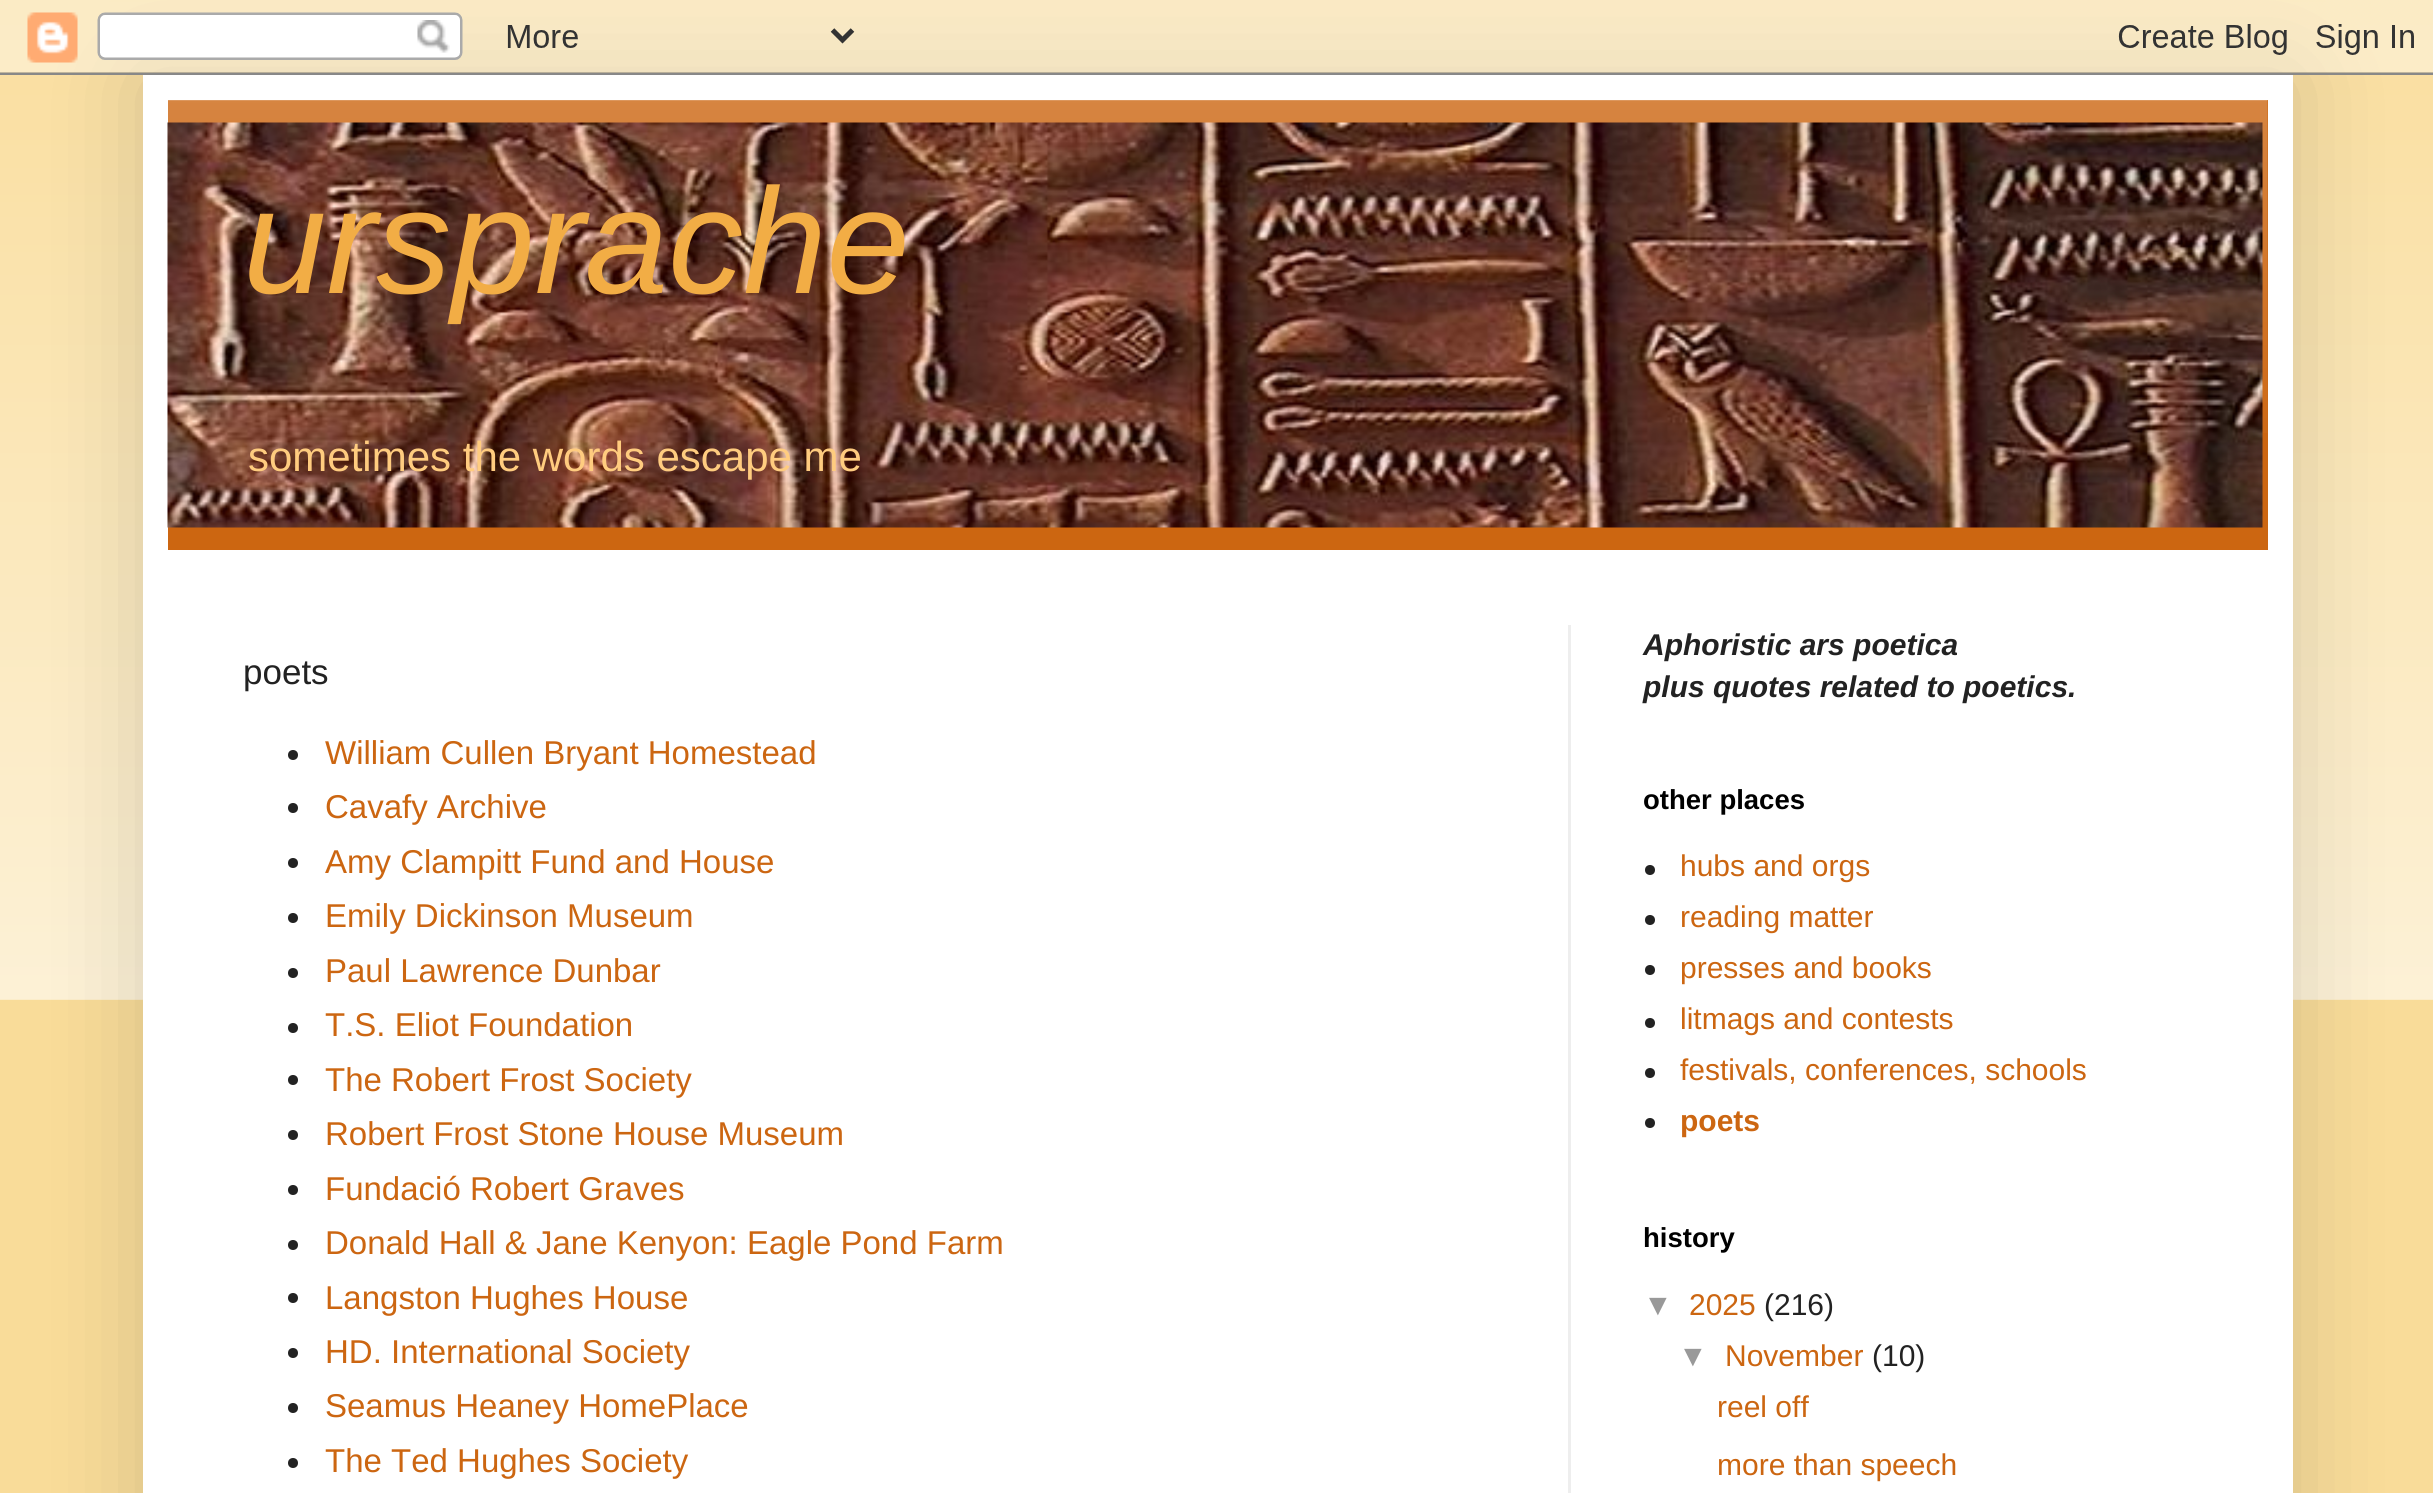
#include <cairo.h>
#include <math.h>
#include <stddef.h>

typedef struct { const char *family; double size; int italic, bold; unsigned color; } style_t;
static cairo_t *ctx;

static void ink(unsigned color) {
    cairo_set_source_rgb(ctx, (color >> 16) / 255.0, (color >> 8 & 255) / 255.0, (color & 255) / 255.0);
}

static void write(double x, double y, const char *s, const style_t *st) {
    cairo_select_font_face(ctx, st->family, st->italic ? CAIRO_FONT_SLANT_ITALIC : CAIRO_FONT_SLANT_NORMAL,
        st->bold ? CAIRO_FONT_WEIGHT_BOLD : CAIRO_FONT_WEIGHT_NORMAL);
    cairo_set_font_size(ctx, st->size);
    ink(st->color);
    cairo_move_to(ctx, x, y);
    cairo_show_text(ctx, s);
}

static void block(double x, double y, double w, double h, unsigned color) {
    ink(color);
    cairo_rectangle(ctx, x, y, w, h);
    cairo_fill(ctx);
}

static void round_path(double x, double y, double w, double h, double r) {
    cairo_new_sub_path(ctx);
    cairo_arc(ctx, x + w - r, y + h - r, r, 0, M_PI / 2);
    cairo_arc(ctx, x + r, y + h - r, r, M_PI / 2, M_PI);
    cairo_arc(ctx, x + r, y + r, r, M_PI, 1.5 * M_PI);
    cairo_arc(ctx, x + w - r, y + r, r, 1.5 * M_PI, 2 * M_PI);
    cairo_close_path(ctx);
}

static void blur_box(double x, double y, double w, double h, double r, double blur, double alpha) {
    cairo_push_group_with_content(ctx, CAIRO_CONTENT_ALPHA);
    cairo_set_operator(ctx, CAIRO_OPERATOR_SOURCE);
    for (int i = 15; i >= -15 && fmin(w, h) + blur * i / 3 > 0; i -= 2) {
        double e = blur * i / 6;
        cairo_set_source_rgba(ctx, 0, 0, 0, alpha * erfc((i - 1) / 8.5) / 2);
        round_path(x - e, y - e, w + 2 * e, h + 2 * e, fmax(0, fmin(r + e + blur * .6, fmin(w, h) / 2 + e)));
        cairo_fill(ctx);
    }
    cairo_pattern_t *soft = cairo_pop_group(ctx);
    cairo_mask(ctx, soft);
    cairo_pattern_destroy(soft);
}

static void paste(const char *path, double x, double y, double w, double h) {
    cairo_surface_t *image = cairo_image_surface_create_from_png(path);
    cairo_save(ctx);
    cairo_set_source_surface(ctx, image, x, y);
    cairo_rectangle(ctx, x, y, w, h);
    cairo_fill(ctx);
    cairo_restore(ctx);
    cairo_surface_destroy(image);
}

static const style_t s1 = {"Liberation Sans", 150, 1, 0, 0xf2ad45};
static const style_t s2 = {"Liberation Sans", 42, 0, 0, 0xffcc7f};
static const style_t s3 = {"Liberation Sans", 35, 0, 0, 0x222222};
static const style_t s4 = {"Liberation Sans", 33, 0, 0, 0xcc6611};
static const style_t s5 = {"Liberation Sans", 30, 1, 1, 0x222222};
static const style_t s6 = {"Liberation Sans", 27.5, 0, 1, 0x000000};
static const style_t s7 = {"Liberation Sans", 30, 0, 0, 0xcc6611};
static const style_t s8 = {"Liberation Sans", 30, 0, 1, 0xcc6611};
static const style_t s9 = {"Liberation Sans", 30, 0, 0, 0x999999};
static const style_t s10 = {"Liberation Sans", 30, 0, 0, 0x222222};

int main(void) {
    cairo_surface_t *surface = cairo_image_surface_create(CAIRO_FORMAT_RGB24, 2433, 1493);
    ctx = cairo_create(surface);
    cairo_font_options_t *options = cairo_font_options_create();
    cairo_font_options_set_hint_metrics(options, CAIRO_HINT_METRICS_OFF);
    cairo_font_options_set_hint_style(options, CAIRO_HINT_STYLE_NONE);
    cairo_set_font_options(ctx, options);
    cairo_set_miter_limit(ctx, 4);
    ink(0xf9dc99);
    cairo_paint(ctx);
    paste("pic1.png", 0, 0, 2433, 1000);
    ink(0x000000);
    blur_box(143, 75, 2150, 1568, 0, 50, 0.15);
    paste("pic2.png", 0, 0, 2433, 75);
    block(143, 75, 2150, 1418, 0xffffff);
    block(168, 100, 2100, 450, 0xcc6611);
    paste("pic3.png", 168, 100, 2100, 333);
    paste("pic4.png", 167, 122, 2096, 406);
    write(243, 293, "ursprache", &s1);
    write(248, 471, "sometimes the words escape me", &s2);
    block(1568, 625, 3, 868, 0xeeeeee);
    write(243, 684, "poets", &s3);
    cairo_new_path(ctx);
    cairo_arc(ctx, 293, 755, 5, 0, 2 * M_PI);
    cairo_fill(ctx);
    write(325, 764, "William Cullen Bryant Homestead", &s4);
    ink(0x222222);
    cairo_new_path(ctx);
    cairo_arc(ctx, 293, 808, 5, 0, 2 * M_PI);
    cairo_fill(ctx);
    write(325, 818, "Cavafy Archive", &s4);
    ink(0x222222);
    cairo_new_path(ctx);
    cairo_arc(ctx, 293, 863, 5, 0, 2 * M_PI);
    cairo_fill(ctx);
    write(325, 873, "Amy Clampitt Fund and House", &s4);
    ink(0x222222);
    cairo_new_path(ctx);
    cairo_arc(ctx, 293, 918, 5, 0, 2 * M_PI);
    cairo_fill(ctx);
    write(325, 927, "Emily Dickinson Museum", &s4);
    ink(0x222222);
    cairo_new_path(ctx);
    cairo_arc(ctx, 293, 973, 5, 0, 2 * M_PI);
    cairo_fill(ctx);
    write(325, 982, "Paul Lawrence Dunbar", &s4);
    ink(0x222222);
    cairo_new_path(ctx);
    cairo_arc(ctx, 293, 1028, 5, 0, 2 * M_PI);
    cairo_fill(ctx);
    write(325, 1036, "T.S. Eliot Foundation", &s4);
    ink(0x222222);
    cairo_new_path(ctx);
    cairo_arc(ctx, 293, 1080, 5, 0, 2 * M_PI);
    cairo_fill(ctx);
    write(325, 1091, "The Robert Frost Society", &s4);
    ink(0x222222);
    cairo_new_path(ctx);
    cairo_arc(ctx, 293, 1135, 5, 0, 2 * M_PI);
    cairo_fill(ctx);
    write(325, 1145, "Robert Frost Stone House Museum", &s4);
    ink(0x222222);
    cairo_new_path(ctx);
    cairo_arc(ctx, 293, 1190, 5, 0, 2 * M_PI);
    cairo_fill(ctx);
    write(325, 1200, "Fundació Robert Graves", &s4);
    ink(0x222222);
    cairo_new_path(ctx);
    cairo_arc(ctx, 293, 1245, 5, 0, 2 * M_PI);
    cairo_fill(ctx);
    write(325, 1254, "Donald Hall & Jane Kenyon: Eagle Pond Farm", &s4);
    ink(0x222222);
    cairo_new_path(ctx);
    cairo_arc(ctx, 293, 1298, 5, 0, 2 * M_PI);
    cairo_fill(ctx);
    write(325, 1309, "Langston Hughes House", &s4);
    ink(0x222222);
    cairo_new_path(ctx);
    cairo_arc(ctx, 293, 1353, 5, 0, 2 * M_PI);
    cairo_fill(ctx);
    write(325, 1363, "HD. International Society", &s4);
    ink(0x222222);
    cairo_new_path(ctx);
    cairo_arc(ctx, 293, 1408, 5, 0, 2 * M_PI);
    cairo_fill(ctx);
    write(325, 1417, "Seamus Heaney HomePlace", &s4);
    ink(0x222222);
    cairo_new_path(ctx);
    cairo_arc(ctx, 293, 1463, 5, 0, 2 * M_PI);
    cairo_fill(ctx);
    write(325, 1472, "The Ted Hughes Society", &s4);
    write(1643, 655, "Aphoristic ars poetica", &s5);
    write(1643, 697, "plus quotes related to poetics.", &s5);
    write(1643, 809, "other places", &s6);
    ink(0x222222);
    cairo_new_path(ctx);
    cairo_arc(ctx, 1650, 870, 5, 0, 2 * M_PI);
    cairo_fill(ctx);
    write(1680, 876, "hubs and orgs", &s7);
    ink(0x222222);
    cairo_new_path(ctx);
    cairo_arc(ctx, 1650, 920, 5, 0, 2 * M_PI);
    cairo_fill(ctx);
    write(1680, 927, "reading matter", &s7);
    ink(0x222222);
    cairo_new_path(ctx);
    cairo_arc(ctx, 1650, 970, 5, 0, 2 * M_PI);
    cairo_fill(ctx);
    write(1680, 978, "presses and books", &s7);
    ink(0x222222);
    cairo_new_path(ctx);
    cairo_arc(ctx, 1650, 1023, 5, 0, 2 * M_PI);
    cairo_fill(ctx);
    write(1680, 1029, "litmags and contests", &s7);
    ink(0x222222);
    cairo_new_path(ctx);
    cairo_arc(ctx, 1650, 1073, 5, 0, 2 * M_PI);
    cairo_fill(ctx);
    write(1680, 1080, "festivals, conferences, schools", &s7);
    ink(0x222222);
    cairo_new_path(ctx);
    cairo_arc(ctx, 1650, 1123, 5, 0, 2 * M_PI);
    cairo_fill(ctx);
    write(1680, 1131, "poets", &s8);
    write(1643, 1247, "history", &s6);
    write(1643, 1315, "▼", &s9);
    write(1689, 1315, "2025", &s7);
    write(1764, 1315, "(216)", &s10);
    write(1678, 1366, "▼", &s9);
    write(1725, 1366, "November", &s7);
    write(1872, 1366, "(10)", &s10);
    write(1717, 1417, "reel off", &s7);
    write(1717, 1475, "more than speech", &s7);
    cairo_surface_write_to_png(surface, "screenshot.png");
    cairo_font_options_destroy(options);
    cairo_destroy(ctx);
    cairo_surface_destroy(surface);
    return 0;
}
